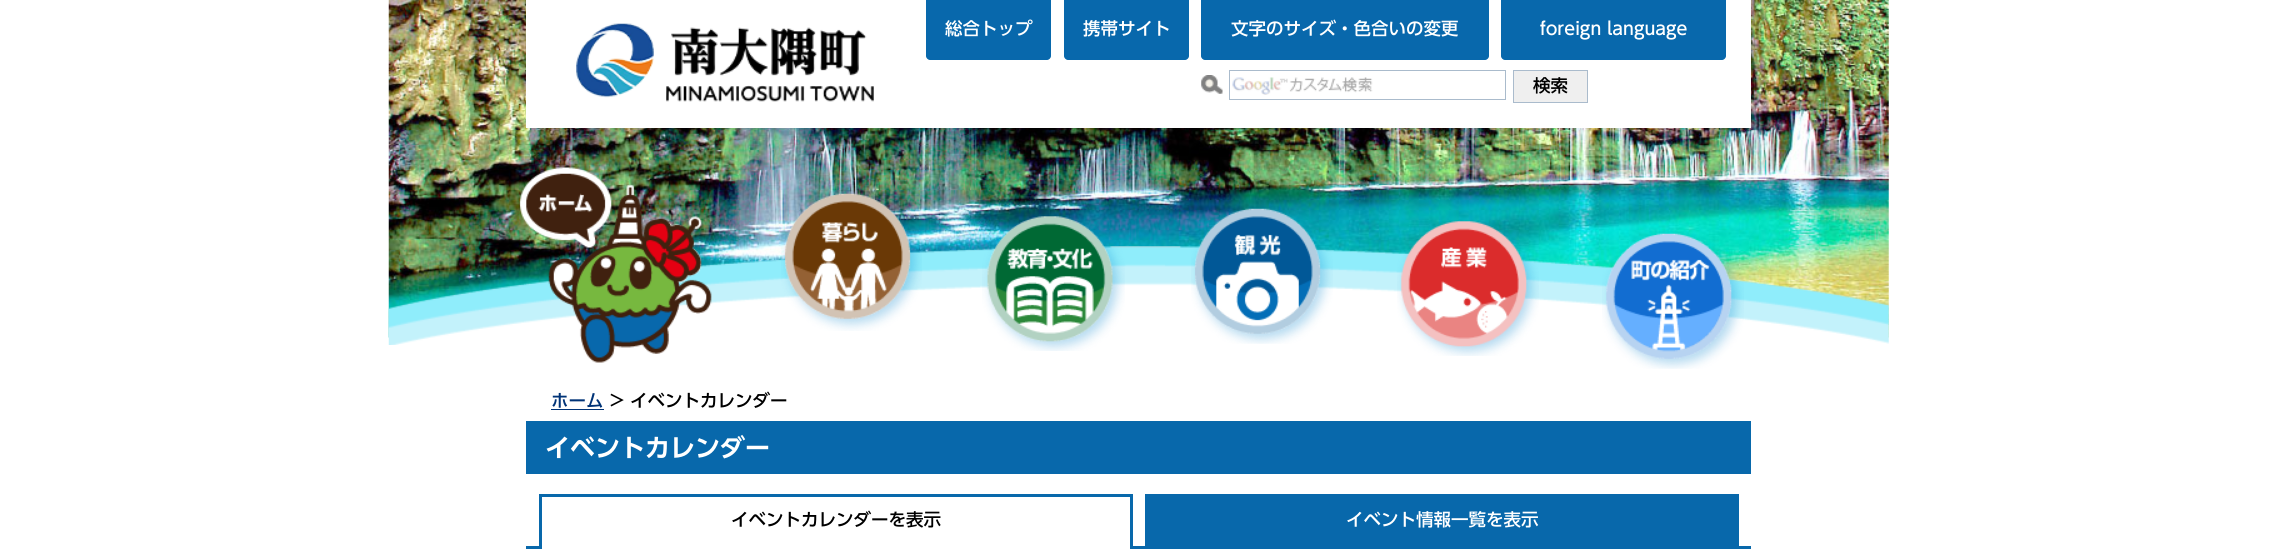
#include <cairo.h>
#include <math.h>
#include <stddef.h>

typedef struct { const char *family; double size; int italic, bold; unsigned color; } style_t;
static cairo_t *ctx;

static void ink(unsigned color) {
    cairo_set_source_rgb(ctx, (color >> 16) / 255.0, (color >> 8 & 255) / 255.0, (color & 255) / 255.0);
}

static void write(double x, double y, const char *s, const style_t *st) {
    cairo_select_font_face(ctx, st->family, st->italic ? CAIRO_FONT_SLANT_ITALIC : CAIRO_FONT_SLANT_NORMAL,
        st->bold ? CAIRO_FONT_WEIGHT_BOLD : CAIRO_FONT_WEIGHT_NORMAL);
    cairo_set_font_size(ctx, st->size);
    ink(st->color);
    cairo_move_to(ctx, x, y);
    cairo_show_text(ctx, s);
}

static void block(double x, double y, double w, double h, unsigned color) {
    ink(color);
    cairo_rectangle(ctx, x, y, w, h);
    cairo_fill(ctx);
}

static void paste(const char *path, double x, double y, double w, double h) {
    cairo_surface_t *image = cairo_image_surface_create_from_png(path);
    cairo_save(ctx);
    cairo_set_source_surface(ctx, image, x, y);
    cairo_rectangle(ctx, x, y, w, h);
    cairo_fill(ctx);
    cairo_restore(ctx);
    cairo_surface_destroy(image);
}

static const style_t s1 = {"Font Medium", 17.5, 0, 0, 0xffffff};
static const style_t s2 = {"Font Medium", 17.5, 0, 0, 0x000000};
static const style_t s3 = {"Font Medium", 17.5, 0, 0, 0x003377};
static const style_t s4 = {"Font SemiBold", 25, 0, 0, 0xffffff};

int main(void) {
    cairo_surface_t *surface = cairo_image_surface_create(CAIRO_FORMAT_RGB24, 2277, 551);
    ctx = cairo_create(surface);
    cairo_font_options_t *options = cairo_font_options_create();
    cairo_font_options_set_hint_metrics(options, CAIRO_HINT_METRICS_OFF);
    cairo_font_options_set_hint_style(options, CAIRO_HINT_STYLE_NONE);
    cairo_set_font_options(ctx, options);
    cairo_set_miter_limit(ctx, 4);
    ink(0xffffff);
    cairo_paint(ctx);
    paste("pic1.png", 388, 0, 1501, 338);
    block(526, 0, 1225, 128, 0xffffff);
    paste("pic2.png", 576, 23, 298, 79);
    ink(0x0868ac);
    cairo_new_path(ctx);
    cairo_move_to(ctx, 926, 0);
    cairo_line_to(ctx, 1051, 0);
    cairo_line_to(ctx, 1051, 56);
    cairo_curve_to(ctx, 1051, 58, 1049, 60, 1047, 60);
    cairo_line_to(ctx, 930, 60);
    cairo_curve_to(ctx, 928, 60, 926, 58, 926, 56);
    cairo_close_path(ctx);
    cairo_fill(ctx);
    write(945, 35, "総合トップ", &s1);
    ink(0x0868ac);
    cairo_new_path(ctx);
    cairo_move_to(ctx, 1064, 0);
    cairo_line_to(ctx, 1189, 0);
    cairo_line_to(ctx, 1189, 56);
    cairo_curve_to(ctx, 1189, 58, 1187, 60, 1185, 60);
    cairo_line_to(ctx, 1068, 60);
    cairo_curve_to(ctx, 1066, 60, 1064, 58, 1064, 56);
    cairo_close_path(ctx);
    cairo_fill(ctx);
    write(1083, 35, "携帯サイト", &s1);
    ink(0x0868ac);
    cairo_new_path(ctx);
    cairo_move_to(ctx, 1201, 0);
    cairo_line_to(ctx, 1489, 0);
    cairo_line_to(ctx, 1489, 56);
    cairo_curve_to(ctx, 1489, 58, 1487, 60, 1485, 60);
    cairo_line_to(ctx, 1205, 60);
    cairo_curve_to(ctx, 1203, 60, 1201, 58, 1201, 56);
    cairo_close_path(ctx);
    cairo_fill(ctx);
    write(1231, 35, "文字のサイズ・色合いの変更", &s1);
    ink(0x0868ac);
    cairo_new_path(ctx);
    cairo_move_to(ctx, 1501, 0);
    cairo_line_to(ctx, 1726, 0);
    cairo_line_to(ctx, 1726, 56);
    cairo_curve_to(ctx, 1726, 58, 1724, 60, 1722, 60);
    cairo_line_to(ctx, 1505, 60);
    cairo_curve_to(ctx, 1503, 60, 1501, 58, 1501, 56);
    cairo_close_path(ctx);
    cairo_fill(ctx);
    write(1540, 35, "foreign language", &s1);
    paste("pic3.png", 1201, 75, 22, 19);
    paste("pic4.png", 1232, 77, 141, 18);
    cairo_rectangle(ctx, 1229.5, 70.5, 276, 29);
    ink(0xaabbcc);
    cairo_set_line_width(ctx, 1);
    cairo_stroke(ctx);
    ink(0xefefef);
    cairo_rectangle(ctx, 1513.5, 70.5, 74, 32);
    cairo_fill_preserve(ctx);
    ink(0xaabbcc);
    cairo_stroke(ctx);
    write(1533, 92, "検索", &s2);
    paste("pic5.png", 388, 246, 1501, 99);
    paste("pic6.png", 519, 167, 193, 196);
    paste("pic7.png", 781, 190, 141, 141);
    paste("pic8.png", 982, 214, 143, 137);
    paste("pic9.png", 1191, 207, 142, 137);
    paste("pic10.png", 1397, 221, 142, 135);
    paste("pic11.png", 1602, 231, 142, 138);
    write(551, 407, "ホーム", &s3);
    block(551, 409, 53, 1, 0x003377);
    write(610, 407, "> イベントカレンダー", &s2);
    block(526, 421, 1225, 53, 0x0868ab);
    write(545, 457, "イベントカレンダー", &s4);
    block(526, 546, 1225, 3, 0x0868ab);
    block(542, 546, 588, 3, 0xffffff);
    block(539, 494, 594, 3, 0x0868ab);
    block(1130, 494, 3, 55, 0x0868ab);
    block(539, 494, 3, 55, 0x0868ab);
    write(731, 526, "イベントカレンダーを表示", &s2);
    block(1145, 494, 594, 52, 0x0868ab);
    write(1346, 526, "イベント情報一覧を表示", &s1);
    cairo_surface_write_to_png(surface, "screenshot.png");
    cairo_font_options_destroy(options);
    cairo_destroy(ctx);
    cairo_surface_destroy(surface);
    return 0;
}
